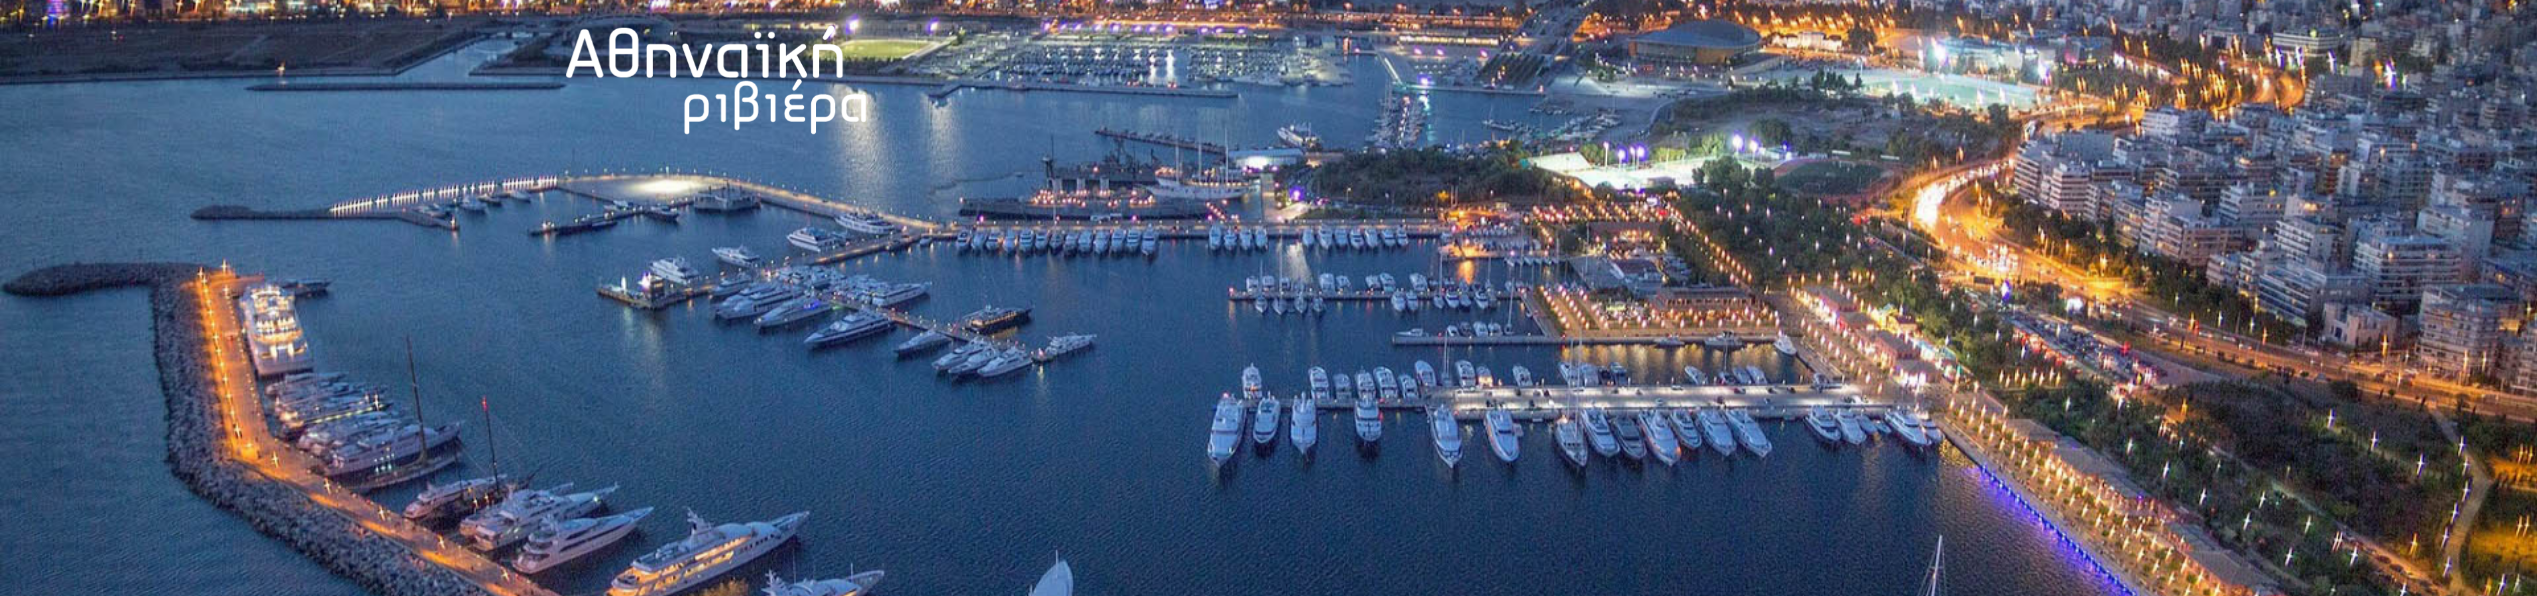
#include <cairo.h>
#include <math.h>
#include <stddef.h>

static cairo_t *ctx;

static void ink(unsigned color) {
    cairo_set_source_rgb(ctx, (color >> 16) / 255.0, (color >> 8 & 255) / 255.0, (color & 255) / 255.0);
}

static void paste(const char *path, double x, double y, double w, double h) {
    cairo_surface_t *image = cairo_image_surface_create_from_png(path);
    cairo_save(ctx);
    cairo_set_source_surface(ctx, image, x, y);
    cairo_rectangle(ctx, x, y, w, h);
    cairo_fill(ctx);
    cairo_restore(ctx);
    cairo_surface_destroy(image);
}

int main(void) {
    cairo_surface_t *surface = cairo_image_surface_create(CAIRO_FORMAT_RGB24, 2537, 596);
    ctx = cairo_create(surface);
    cairo_font_options_t *options = cairo_font_options_create();
    cairo_font_options_set_hint_metrics(options, CAIRO_HINT_METRICS_OFF);
    cairo_font_options_set_hint_style(options, CAIRO_HINT_STYLE_NONE);
    cairo_set_font_options(ctx, options);
    cairo_set_miter_limit(ctx, 4);
    ink(0xffffff);
    cairo_paint(ctx);
    paste("pic1.png", 0, 0, 2537, 596);
    paste("pic2.png", 565, 25, 302, 110);
    cairo_surface_write_to_png(surface, "screenshot.png");
    cairo_font_options_destroy(options);
    cairo_destroy(ctx);
    cairo_surface_destroy(surface);
    return 0;
}
